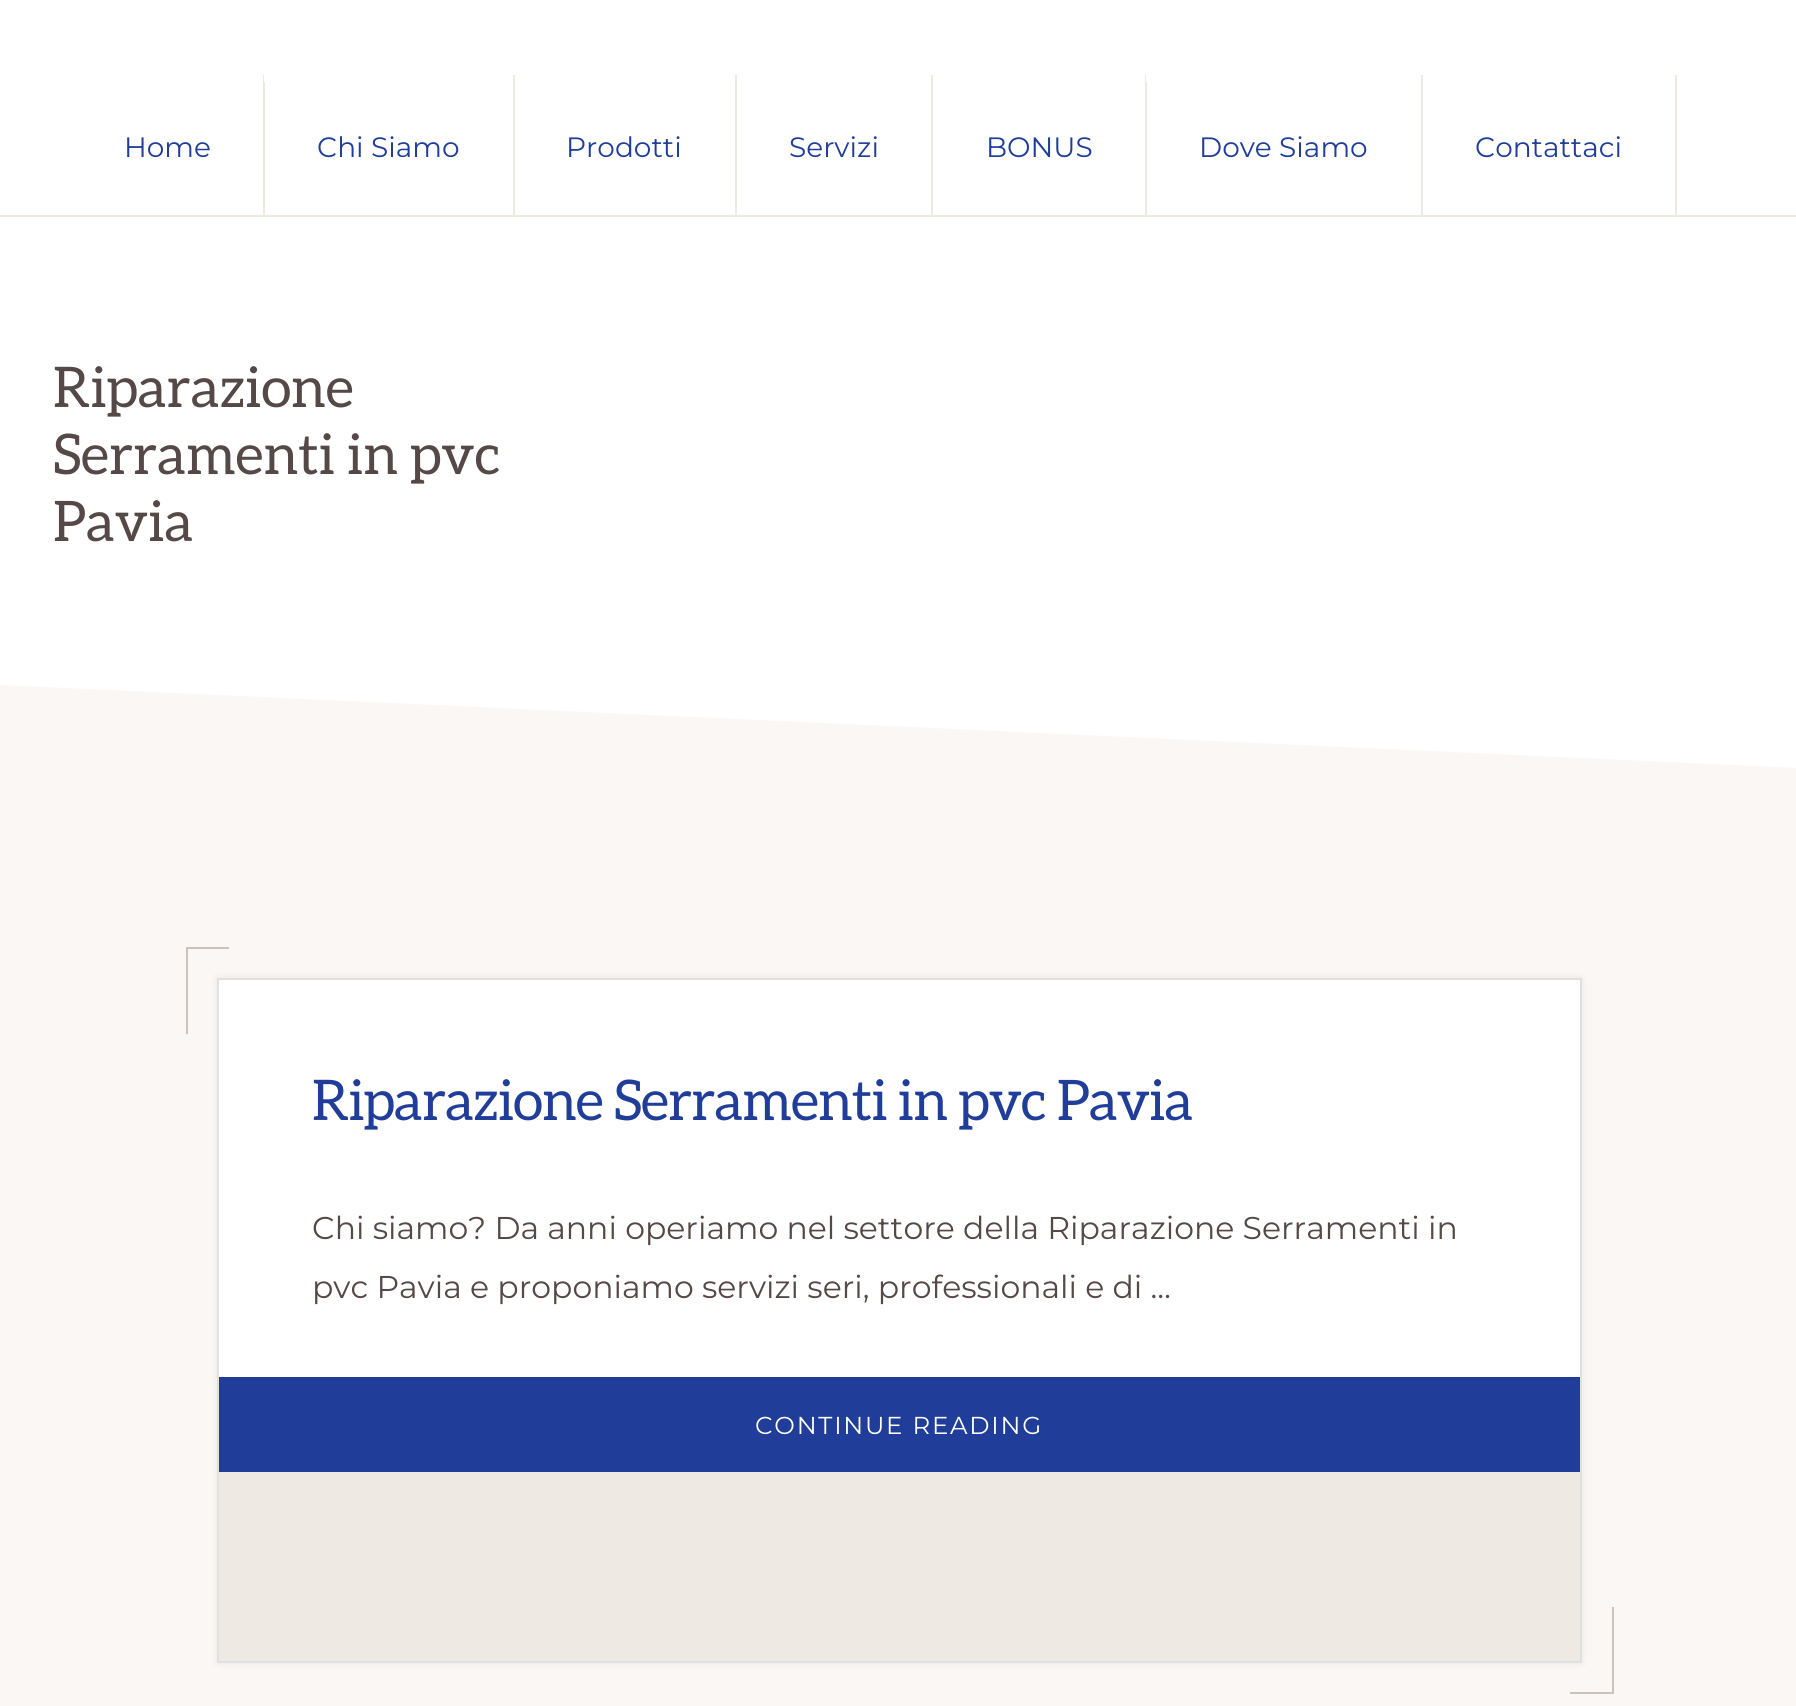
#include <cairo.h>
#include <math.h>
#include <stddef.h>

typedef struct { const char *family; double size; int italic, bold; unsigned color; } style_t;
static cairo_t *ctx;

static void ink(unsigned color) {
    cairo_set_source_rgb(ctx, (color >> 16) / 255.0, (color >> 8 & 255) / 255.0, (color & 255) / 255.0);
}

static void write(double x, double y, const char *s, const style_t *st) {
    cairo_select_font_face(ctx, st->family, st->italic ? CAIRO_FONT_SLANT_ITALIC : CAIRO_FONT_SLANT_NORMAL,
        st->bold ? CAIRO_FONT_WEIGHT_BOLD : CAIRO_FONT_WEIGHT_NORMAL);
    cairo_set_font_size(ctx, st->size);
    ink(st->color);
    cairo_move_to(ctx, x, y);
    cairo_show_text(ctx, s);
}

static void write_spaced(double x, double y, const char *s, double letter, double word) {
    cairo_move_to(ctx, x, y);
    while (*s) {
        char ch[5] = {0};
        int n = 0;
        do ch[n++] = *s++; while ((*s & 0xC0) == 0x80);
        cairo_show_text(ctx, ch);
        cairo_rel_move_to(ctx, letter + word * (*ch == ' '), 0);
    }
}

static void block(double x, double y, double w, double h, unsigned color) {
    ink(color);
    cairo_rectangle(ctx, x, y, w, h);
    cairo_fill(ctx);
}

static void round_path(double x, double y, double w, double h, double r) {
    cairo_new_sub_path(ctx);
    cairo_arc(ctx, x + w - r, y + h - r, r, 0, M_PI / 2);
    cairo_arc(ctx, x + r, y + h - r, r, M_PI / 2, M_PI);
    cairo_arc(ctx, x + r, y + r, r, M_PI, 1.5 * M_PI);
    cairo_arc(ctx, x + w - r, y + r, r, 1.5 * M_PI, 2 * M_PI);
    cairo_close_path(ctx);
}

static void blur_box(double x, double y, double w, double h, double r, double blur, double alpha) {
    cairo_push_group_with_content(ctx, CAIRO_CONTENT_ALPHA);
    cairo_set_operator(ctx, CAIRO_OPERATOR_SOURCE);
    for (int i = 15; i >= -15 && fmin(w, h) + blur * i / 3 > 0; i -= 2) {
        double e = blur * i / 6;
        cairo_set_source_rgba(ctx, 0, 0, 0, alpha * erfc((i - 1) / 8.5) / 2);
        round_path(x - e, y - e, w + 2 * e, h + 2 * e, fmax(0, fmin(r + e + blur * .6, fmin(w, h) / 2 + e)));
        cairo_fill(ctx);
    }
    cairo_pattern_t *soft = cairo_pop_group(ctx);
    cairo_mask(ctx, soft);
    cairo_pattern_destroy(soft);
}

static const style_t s1 = {"Montserrat Thin", 28, 0, 0, 0x203e99};
static const style_t s2 = {"Aleo", 56, 0, 0, 0x554948};
static const style_t s3 = {"Montserrat Thin", 31.5, 0, 0, 0x554948};

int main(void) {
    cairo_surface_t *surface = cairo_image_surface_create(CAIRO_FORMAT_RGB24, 1796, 1706);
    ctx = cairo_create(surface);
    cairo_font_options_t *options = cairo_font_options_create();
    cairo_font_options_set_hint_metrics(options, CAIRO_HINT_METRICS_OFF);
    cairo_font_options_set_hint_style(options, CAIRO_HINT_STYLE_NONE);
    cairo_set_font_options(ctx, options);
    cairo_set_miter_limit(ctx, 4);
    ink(0xfaf7f4);
    cairo_paint(ctx);
    block(0, 0, 1796, 215, 0xffffff);
    block(0, 215, 1796, 2, 0xeee9e3);
    block(263, 75, 2, 140, 0xeee9e3);
    write(124, 157, "Home", &s1);
    block(513, 75, 2, 140, 0xeee9e3);
    block(264, 75, 1, 7, 0xffffff);
    write(317, 157, "Chi Siamo", &s1);
    block(735, 75, 2, 140, 0xeee9e3);
    write(566, 157, "Prodotti", &s1);
    block(931, 75, 2, 140, 0xeee9e3);
    write(789, 157, "Servizi", &s1);
    block(1145, 75, 2, 140, 0xeee9e3);
    write(986, 157, "BONUS", &s1);
    block(1421, 75, 2, 140, 0xeee9e3);
    block(1146, 75, 1, 7, 0xffffff);
    write(1199, 157, "Dove Siamo", &s1);
    block(1675, 75, 2, 140, 0xeee9e3);
    write(1475, 157, "Contattaci", &s1);
    ink(0xffffff);
    cairo_new_path(ctx);
    cairo_move_to(ctx, 0, 217);
    cairo_line_to(ctx, 0, 685);
    cairo_line_to(ctx, 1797, 768);
    cairo_line_to(ctx, 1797, 217);
    cairo_close_path(ctx);
    cairo_fill(ctx);
    write(53, 407, "Riparazione", &s2);
    write(53, 474, "Serramenti in pvc", &s2);
    write(53, 541, "Pavia", &s2);
    ink(0x000000);
    blur_box(217, 978, 1365, 685, 0, 4.5, 0.07);
    block(219, 980, 1361, 397, 0xffffff);
    cairo_rectangle(ctx, 218, 979, 1363, 683);
    ink(0xe0e0e0);
    cairo_stroke(ctx);
    block(186, 947, 43, 2, 0xc9c3c0);
    block(186, 947, 2, 87, 0xc9c3c0);
    ink(0x203e99);
    write_spaced(312, 1120, "Riparazione Serramenti in pvc Pavia", -0.9, 0);
    write(312, 1239, "Chi siamo? Da anni operiamo nel settore della Riparazione Serramenti in", &s3);
    write(312, 1298, "pvc Pavia e proponiamo servizi seri, professionali e di …", &s3);
    block(219, 1377, 1361, 95, 0x203e99);
    cairo_set_font_size(ctx, 24.5);
    ink(0xffffff);
    write_spaced(755, 1434, "CONTINUE READING", 1.75, 0);
    block(219, 1472, 1361, 189, 0xeee9e3);
    block(1612, 1607, 2, 87, 0xc9c3c0);
    block(1570, 1692, 44, 2, 0xc9c3c0);
    cairo_surface_write_to_png(surface, "screenshot.png");
    cairo_font_options_destroy(options);
    cairo_destroy(ctx);
    cairo_surface_destroy(surface);
    return 0;
}
